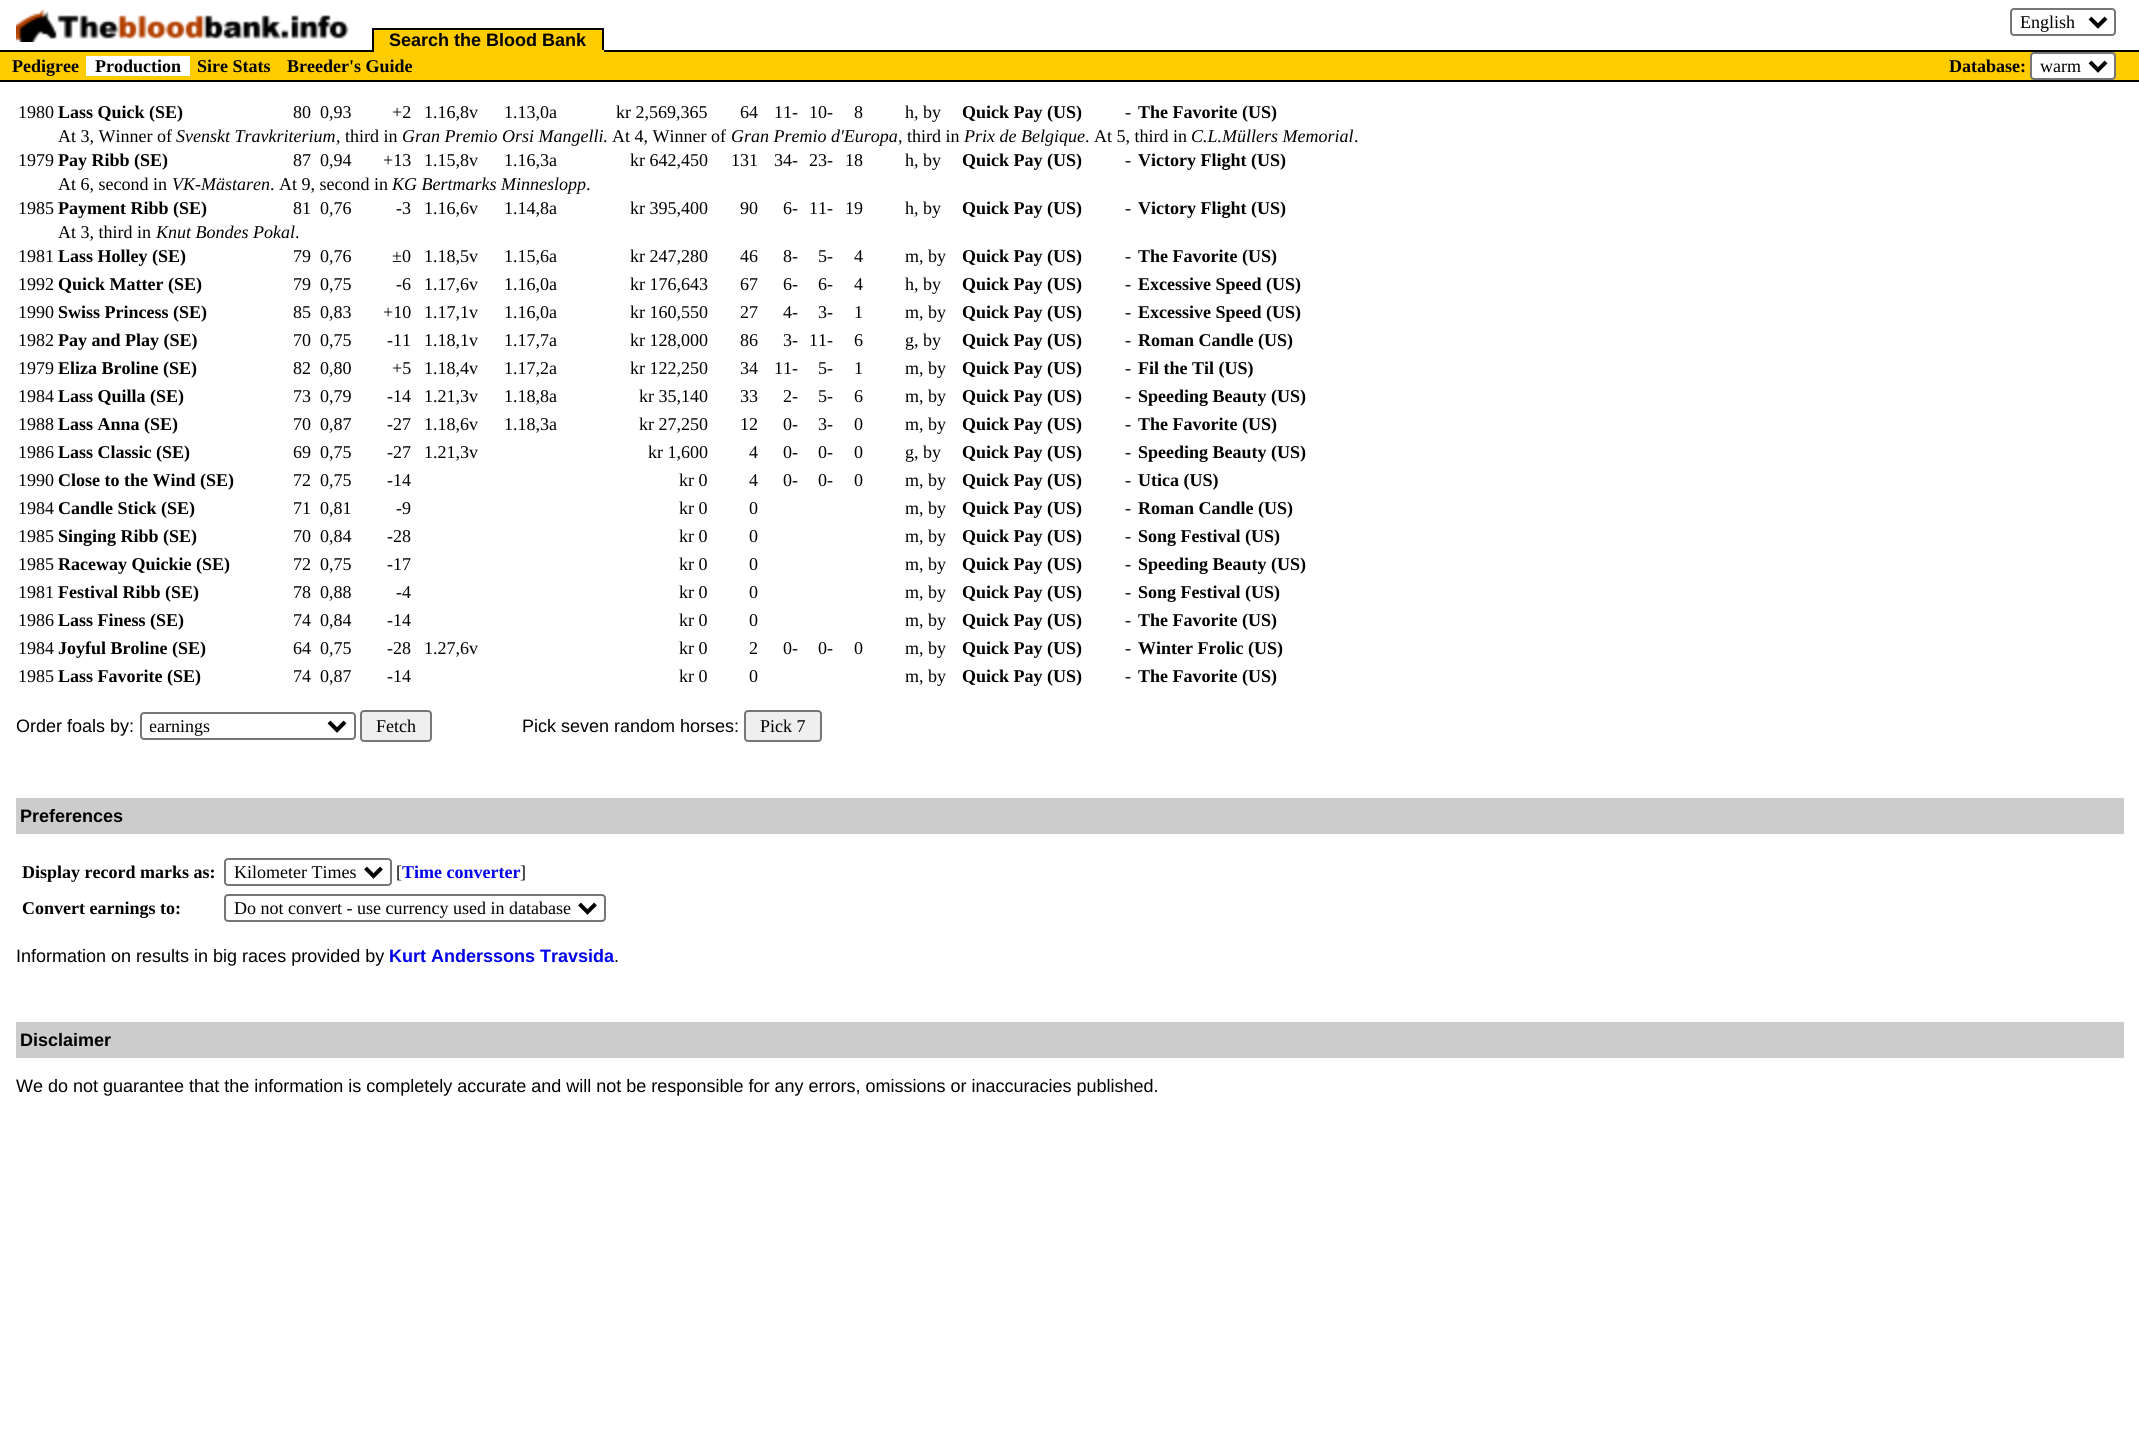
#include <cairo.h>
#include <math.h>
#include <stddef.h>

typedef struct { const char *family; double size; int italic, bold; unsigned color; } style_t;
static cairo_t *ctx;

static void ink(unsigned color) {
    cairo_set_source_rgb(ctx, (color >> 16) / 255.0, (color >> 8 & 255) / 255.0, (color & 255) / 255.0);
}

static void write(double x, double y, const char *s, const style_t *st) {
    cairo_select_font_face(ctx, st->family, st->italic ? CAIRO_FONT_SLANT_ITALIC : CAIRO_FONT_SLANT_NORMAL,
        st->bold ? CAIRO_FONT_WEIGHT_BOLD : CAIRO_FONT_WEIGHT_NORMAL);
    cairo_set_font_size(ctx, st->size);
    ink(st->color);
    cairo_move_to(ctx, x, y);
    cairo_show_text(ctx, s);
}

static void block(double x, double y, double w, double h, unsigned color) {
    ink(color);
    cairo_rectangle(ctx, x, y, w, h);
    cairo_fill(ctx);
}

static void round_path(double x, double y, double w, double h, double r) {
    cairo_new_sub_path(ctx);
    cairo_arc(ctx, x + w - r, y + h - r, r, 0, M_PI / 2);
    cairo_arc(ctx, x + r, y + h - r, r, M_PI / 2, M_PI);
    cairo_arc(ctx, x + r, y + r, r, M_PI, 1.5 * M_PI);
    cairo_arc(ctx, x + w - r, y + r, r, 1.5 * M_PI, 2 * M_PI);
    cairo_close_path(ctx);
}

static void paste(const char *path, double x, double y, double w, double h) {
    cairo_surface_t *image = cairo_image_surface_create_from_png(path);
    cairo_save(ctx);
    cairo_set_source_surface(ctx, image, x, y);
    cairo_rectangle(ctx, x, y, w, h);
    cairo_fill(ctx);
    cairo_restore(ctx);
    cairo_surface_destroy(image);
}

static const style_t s1 = {"Liberation Serif", 18, 0, 0, 0x000000};
static const style_t s2 = {"Liberation Sans", 18, 0, 1, 0x000000};
static const style_t s3 = {"Liberation Serif", 18, 0, 1, 0x000000};
static const style_t s4 = {"Liberation Serif", 18, 1, 0, 0x000000};
static const style_t s5 = {"Liberation Sans", 18, 0, 0, 0x000000};
static const style_t s6 = {"Liberation Serif", 18, 0, 1, 0x0000ee};
static const style_t s7 = {"Liberation Sans", 18, 0, 1, 0x0000ee};

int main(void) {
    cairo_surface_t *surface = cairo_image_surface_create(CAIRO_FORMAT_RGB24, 2139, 1441);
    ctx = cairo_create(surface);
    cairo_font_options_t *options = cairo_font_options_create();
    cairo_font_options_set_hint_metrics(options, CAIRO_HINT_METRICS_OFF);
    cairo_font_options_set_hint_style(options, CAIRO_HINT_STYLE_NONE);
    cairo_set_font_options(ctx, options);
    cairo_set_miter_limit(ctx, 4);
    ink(0xffffff);
    cairo_paint(ctx);
    block(0, 50, 2139, 2, 0x000000);
    paste("pic1.png", 16, 10, 333, 32);
    round_path(2011, 9, 104, 26, 3);
    ink(0x767676);
    cairo_stroke(ctx);
    cairo_new_path(ctx);
    cairo_move_to(ctx, 2090, 18);
    cairo_line_to(ctx, 2098, 26);
    cairo_line_to(ctx, 2106, 18);
    ink(0x000000);
    cairo_set_line_width(ctx, 4);
    cairo_stroke(ctx);
    write(2020, 28, "English", &s1);
    block(374, 30, 228, 20, 0xffcc00);
    write(389, 46, "Search the Blood Bank", &s2);
    block(372, 28, 232, 2, 0x000000);
    block(602, 28, 2, 24, 0x000000);
    block(372, 50, 232, 2, 0xffcc00);
    block(372, 28, 2, 24, 0x000000);
    block(0, 52, 2139, 28, 0xffcc00);
    block(0, 80, 2139, 2, 0x000000);
    write(12, 72, "Pedigree", &s3);
    block(86, 56, 104, 20, 0xffffff);
    write(95, 72, "Production", &s3);
    write(197, 72, "Sire Stats", &s3);
    write(287, 72, "Breeder's Guide", &s3);
    write(1949, 72, "Database:", &s3);
    ink(0xffffff);
    round_path(2031, 53, 84, 26, 3);
    cairo_fill_preserve(ctx);
    ink(0x767676);
    cairo_set_line_width(ctx, 2);
    cairo_stroke(ctx);
    cairo_new_path(ctx);
    cairo_move_to(ctx, 2090, 62);
    cairo_line_to(ctx, 2098, 70);
    cairo_line_to(ctx, 2106, 62);
    ink(0x000000);
    cairo_set_line_width(ctx, 4);
    cairo_stroke(ctx);
    write(2040, 72, "warm", &s1);
    write(18, 118, "1980", &s1);
    write(58, 118, "Lass Quick (SE)", &s3);
    write(293, 118, "80", &s1);
    write(320, 118, "0,93", &s1);
    write(392, 118, "+2", &s1);
    write(424, 118, "1.16,8v", &s1);
    write(504, 118, "1.13,0a", &s1);
    write(616, 118, "kr 2,569,365", &s1);
    write(740, 118, "64", &s1);
    write(774, 118, "11-", &s1);
    write(809, 118, "10-", &s1);
    write(854, 118, "8", &s1);
    write(905, 118, "h, by", &s1);
    write(962, 118, "Quick Pay (US)", &s3);
    write(1125, 118, "-", &s1);
    write(1138, 118, "The Favorite (US)", &s3);
    write(58, 142, "At 3, Winner of", &s1);
    write(176, 142, "Svenskt Travkriterium", &s4);
    write(336, 142, ", third in", &s1);
    write(402, 142, "Gran Premio Orsi Mangelli", &s4);
    write(603, 142, ". At 4, Winner of", &s1);
    write(731, 142, "Gran Premio d'Europa", &s4);
    write(898, 142, ", third in", &s1);
    write(964, 142, "Prix de Belgique", &s4);
    write(1085, 142, ". At 5, third in", &s1);
    write(1191, 142, "C.L.Müllers Memorial", &s4);
    write(1354, 142, ".", &s1);
    write(18, 166, "1979", &s1);
    write(58, 166, "Pay Ribb (SE)", &s3);
    write(293, 166, "87", &s1);
    write(320, 166, "0,94", &s1);
    write(383, 166, "+13", &s1);
    write(424, 166, "1.15,8v", &s1);
    write(504, 166, "1.16,3a", &s1);
    write(630, 166, "kr 642,450", &s1);
    write(731, 166, "131", &s1);
    write(774, 166, "34-", &s1);
    write(809, 166, "23-", &s1);
    write(845, 166, "18", &s1);
    write(905, 166, "h, by", &s1);
    write(962, 166, "Quick Pay (US)", &s3);
    write(1125, 166, "-", &s1);
    write(1138, 166, "Victory Flight (US)", &s3);
    write(58, 190, "At 6, second in", &s1);
    write(172, 190, "VK-Mästaren", &s4);
    write(270, 190, ". At 9, second in", &s1);
    write(392, 190, "KG Bertmarks Minneslopp", &s4);
    write(586, 190, ".", &s1);
    write(18, 214, "1985", &s1);
    write(58, 214, "Payment Ribb (SE)", &s3);
    write(293, 214, "81", &s1);
    write(320, 214, "0,76", &s1);
    write(396, 214, "-3", &s1);
    write(424, 214, "1.16,6v", &s1);
    write(504, 214, "1.14,8a", &s1);
    write(630, 214, "kr 395,400", &s1);
    write(740, 214, "90", &s1);
    write(783, 214, "6-", &s1);
    write(809, 214, "11-", &s1);
    write(845, 214, "19", &s1);
    write(905, 214, "h, by", &s1);
    write(962, 214, "Quick Pay (US)", &s3);
    write(1125, 214, "-", &s1);
    write(1138, 214, "Victory Flight (US)", &s3);
    write(58, 238, "At 3, third in", &s1);
    write(156, 238, "Knut Bondes Pokal", &s4);
    write(295, 238, ".", &s1);
    write(18, 262, "1981", &s1);
    write(58, 262, "Lass Holley (SE)", &s3);
    write(293, 262, "79", &s1);
    write(320, 262, "0,76", &s1);
    write(392, 262, "±0", &s1);
    write(424, 262, "1.18,5v", &s1);
    write(504, 262, "1.15,6a", &s1);
    write(630, 262, "kr 247,280", &s1);
    write(740, 262, "46", &s1);
    write(783, 262, "8-", &s1);
    write(818, 262, "5-", &s1);
    write(854, 262, "4", &s1);
    write(905, 262, "m, by", &s1);
    write(962, 262, "Quick Pay (US)", &s3);
    write(1125, 262, "-", &s1);
    write(1138, 262, "The Favorite (US)", &s3);
    write(18, 290, "1992", &s1);
    write(58, 290, "Quick Matter (SE)", &s3);
    write(293, 290, "79", &s1);
    write(320, 290, "0,75", &s1);
    write(396, 290, "-6", &s1);
    write(424, 290, "1.17,6v", &s1);
    write(504, 290, "1.16,0a", &s1);
    write(630, 290, "kr 176,643", &s1);
    write(740, 290, "67", &s1);
    write(783, 290, "6-", &s1);
    write(818, 290, "6-", &s1);
    write(854, 290, "4", &s1);
    write(905, 290, "h, by", &s1);
    write(962, 290, "Quick Pay (US)", &s3);
    write(1125, 290, "-", &s1);
    write(1138, 290, "Excessive Speed (US)", &s3);
    write(18, 318, "1990", &s1);
    write(58, 318, "Swiss Princess (SE)", &s3);
    write(293, 318, "85", &s1);
    write(320, 318, "0,83", &s1);
    write(383, 318, "+10", &s1);
    write(424, 318, "1.17,1v", &s1);
    write(504, 318, "1.16,0a", &s1);
    write(630, 318, "kr 160,550", &s1);
    write(740, 318, "27", &s1);
    write(783, 318, "4-", &s1);
    write(818, 318, "3-", &s1);
    write(854, 318, "1", &s1);
    write(905, 318, "m, by", &s1);
    write(962, 318, "Quick Pay (US)", &s3);
    write(1125, 318, "-", &s1);
    write(1138, 318, "Excessive Speed (US)", &s3);
    write(18, 346, "1982", &s1);
    write(58, 346, "Pay and Play (SE)", &s3);
    write(293, 346, "70", &s1);
    write(320, 346, "0,75", &s1);
    write(387, 346, "-11", &s1);
    write(424, 346, "1.18,1v", &s1);
    write(504, 346, "1.17,7a", &s1);
    write(630, 346, "kr 128,000", &s1);
    write(740, 346, "86", &s1);
    write(783, 346, "3-", &s1);
    write(809, 346, "11-", &s1);
    write(854, 346, "6", &s1);
    write(905, 346, "g, by", &s1);
    write(962, 346, "Quick Pay (US)", &s3);
    write(1125, 346, "-", &s1);
    write(1138, 346, "Roman Candle (US)", &s3);
    write(18, 374, "1979", &s1);
    write(58, 374, "Eliza Broline (SE)", &s3);
    write(293, 374, "82", &s1);
    write(320, 374, "0,80", &s1);
    write(392, 374, "+5", &s1);
    write(424, 374, "1.18,4v", &s1);
    write(504, 374, "1.17,2a", &s1);
    write(630, 374, "kr 122,250", &s1);
    write(740, 374, "34", &s1);
    write(774, 374, "11-", &s1);
    write(818, 374, "5-", &s1);
    write(854, 374, "1", &s1);
    write(905, 374, "m, by", &s1);
    write(962, 374, "Quick Pay (US)", &s3);
    write(1125, 374, "-", &s1);
    write(1138, 374, "Fil the Til (US)", &s3);
    write(18, 402, "1984", &s1);
    write(58, 402, "Lass Quilla (SE)", &s3);
    write(293, 402, "73", &s1);
    write(320, 402, "0,79", &s1);
    write(387, 402, "-14", &s1);
    write(424, 402, "1.21,3v", &s1);
    write(504, 402, "1.18,8a", &s1);
    write(639, 402, "kr 35,140", &s1);
    write(740, 402, "33", &s1);
    write(783, 402, "2-", &s1);
    write(818, 402, "5-", &s1);
    write(854, 402, "6", &s1);
    write(905, 402, "m, by", &s1);
    write(962, 402, "Quick Pay (US)", &s3);
    write(1125, 402, "-", &s1);
    write(1138, 402, "Speeding Beauty (US)", &s3);
    write(18, 430, "1988", &s1);
    write(58, 430, "Lass Anna (SE)", &s3);
    write(293, 430, "70", &s1);
    write(320, 430, "0,87", &s1);
    write(387, 430, "-27", &s1);
    write(424, 430, "1.18,6v", &s1);
    write(504, 430, "1.18,3a", &s1);
    write(639, 430, "kr 27,250", &s1);
    write(740, 430, "12", &s1);
    write(783, 430, "0-", &s1);
    write(818, 430, "3-", &s1);
    write(854, 430, "0", &s1);
    write(905, 430, "m, by", &s1);
    write(962, 430, "Quick Pay (US)", &s3);
    write(1125, 430, "-", &s1);
    write(1138, 430, "The Favorite (US)", &s3);
    write(18, 458, "1986", &s1);
    write(58, 458, "Lass Classic (SE)", &s3);
    write(293, 458, "69", &s1);
    write(320, 458, "0,75", &s1);
    write(387, 458, "-27", &s1);
    write(424, 458, "1.21,3v", &s1);
    write(648, 458, "kr 1,600", &s1);
    write(749, 458, "4", &s1);
    write(783, 458, "0-", &s1);
    write(818, 458, "0-", &s1);
    write(854, 458, "0", &s1);
    write(905, 458, "g, by", &s1);
    write(962, 458, "Quick Pay (US)", &s3);
    write(1125, 458, "-", &s1);
    write(1138, 458, "Speeding Beauty (US)", &s3);
    write(18, 486, "1990", &s1);
    write(58, 486, "Close to the Wind (SE)", &s3);
    write(293, 486, "72", &s1);
    write(320, 486, "0,75", &s1);
    write(387, 486, "-14", &s1);
    write(679, 486, "kr 0", &s1);
    write(749, 486, "4", &s1);
    write(783, 486, "0-", &s1);
    write(818, 486, "0-", &s1);
    write(854, 486, "0", &s1);
    write(905, 486, "m, by", &s1);
    write(962, 486, "Quick Pay (US)", &s3);
    write(1125, 486, "-", &s1);
    write(1138, 486, "Utica (US)", &s3);
    write(18, 514, "1984", &s1);
    write(58, 514, "Candle Stick (SE)", &s3);
    write(293, 514, "71", &s1);
    write(320, 514, "0,81", &s1);
    write(396, 514, "-9", &s1);
    write(679, 514, "kr 0", &s1);
    write(749, 514, "0", &s1);
    write(905, 514, "m, by", &s1);
    write(962, 514, "Quick Pay (US)", &s3);
    write(1125, 514, "-", &s1);
    write(1138, 514, "Roman Candle (US)", &s3);
    write(18, 542, "1985", &s1);
    write(58, 542, "Singing Ribb (SE)", &s3);
    write(293, 542, "70", &s1);
    write(320, 542, "0,84", &s1);
    write(387, 542, "-28", &s1);
    write(679, 542, "kr 0", &s1);
    write(749, 542, "0", &s1);
    write(905, 542, "m, by", &s1);
    write(962, 542, "Quick Pay (US)", &s3);
    write(1125, 542, "-", &s1);
    write(1138, 542, "Song Festival (US)", &s3);
    write(18, 570, "1985", &s1);
    write(58, 570, "Raceway Quickie (SE)", &s3);
    write(293, 570, "72", &s1);
    write(320, 570, "0,75", &s1);
    write(387, 570, "-17", &s1);
    write(679, 570, "kr 0", &s1);
    write(749, 570, "0", &s1);
    write(905, 570, "m, by", &s1);
    write(962, 570, "Quick Pay (US)", &s3);
    write(1125, 570, "-", &s1);
    write(1138, 570, "Speeding Beauty (US)", &s3);
    write(18, 598, "1981", &s1);
    write(58, 598, "Festival Ribb (SE)", &s3);
    write(293, 598, "78", &s1);
    write(320, 598, "0,88", &s1);
    write(396, 598, "-4", &s1);
    write(679, 598, "kr 0", &s1);
    write(749, 598, "0", &s1);
    write(905, 598, "m, by", &s1);
    write(962, 598, "Quick Pay (US)", &s3);
    write(1125, 598, "-", &s1);
    write(1138, 598, "Song Festival (US)", &s3);
    write(18, 626, "1986", &s1);
    write(58, 626, "Lass Finess (SE)", &s3);
    write(293, 626, "74", &s1);
    write(320, 626, "0,84", &s1);
    write(387, 626, "-14", &s1);
    write(679, 626, "kr 0", &s1);
    write(749, 626, "0", &s1);
    write(905, 626, "m, by", &s1);
    write(962, 626, "Quick Pay (US)", &s3);
    write(1125, 626, "-", &s1);
    write(1138, 626, "The Favorite (US)", &s3);
    write(18, 654, "1984", &s1);
    write(58, 654, "Joyful Broline (SE)", &s3);
    write(293, 654, "64", &s1);
    write(320, 654, "0,75", &s1);
    write(387, 654, "-28", &s1);
    write(424, 654, "1.27,6v", &s1);
    write(679, 654, "kr 0", &s1);
    write(749, 654, "2", &s1);
    write(783, 654, "0-", &s1);
    write(818, 654, "0-", &s1);
    write(854, 654, "0", &s1);
    write(905, 654, "m, by", &s1);
    write(962, 654, "Quick Pay (US)", &s3);
    write(1125, 654, "-", &s1);
    write(1138, 654, "Winter Frolic (US)", &s3);
    write(18, 682, "1985", &s1);
    write(58, 682, "Lass Favorite (SE)", &s3);
    write(293, 682, "74", &s1);
    write(320, 682, "0,87", &s1);
    write(387, 682, "-14", &s1);
    write(679, 682, "kr 0", &s1);
    write(749, 682, "0", &s1);
    write(905, 682, "m, by", &s1);
    write(962, 682, "Quick Pay (US)", &s3);
    write(1125, 682, "-", &s1);
    write(1138, 682, "The Favorite (US)", &s3);
    write(16, 732, "Order foals by:", &s5);
    round_path(141, 713, 214, 26, 3);
    ink(0x767676);
    cairo_set_line_width(ctx, 2);
    cairo_stroke(ctx);
    cairo_new_path(ctx);
    cairo_move_to(ctx, 329, 722);
    cairo_line_to(ctx, 337, 730);
    cairo_line_to(ctx, 345, 722);
    ink(0x000000);
    cairo_set_line_width(ctx, 4);
    cairo_stroke(ctx);
    cairo_save(ctx);
    cairo_rectangle(ctx, 150, 714, 172, 24);
    cairo_clip(ctx);
    write(149, 732, "earnings", &s1);
    cairo_restore(ctx);
    ink(0xefefef);
    round_path(361, 711, 70, 30, 3);
    cairo_fill_preserve(ctx);
    ink(0x767676);
    cairo_set_line_width(ctx, 2);
    cairo_stroke(ctx);
    write(376, 732, "Fetch", &s1);
    write(522, 732, "Pick seven random horses:", &s5);
    ink(0xefefef);
    round_path(745, 711, 76, 30, 3);
    cairo_fill_preserve(ctx);
    ink(0x767676);
    cairo_stroke(ctx);
    write(760, 732, "Pick 7", &s1);
    block(16, 798, 2108, 36, 0xcccccc);
    write(20, 822, "Preferences", &s2);
    write(22, 878, "Display record marks as:", &s3);
    round_path(225, 859, 166, 26, 3);
    ink(0x767676);
    cairo_stroke(ctx);
    cairo_new_path(ctx);
    cairo_move_to(ctx, 365.5, 868);
    cairo_line_to(ctx, 373.5, 876);
    cairo_line_to(ctx, 381.5, 868);
    ink(0x000000);
    cairo_set_line_width(ctx, 4);
    cairo_stroke(ctx);
    write(234, 878, "Kilometer Times", &s1);
    write(396, 878, "[", &s1);
    write(402, 878, "Time converter", &s6);
    write(520, 878, "]", &s1);
    write(22, 914, "Convert earnings to:", &s3);
    round_path(225, 895, 380, 26, 3);
    ink(0x767676);
    cairo_set_line_width(ctx, 2);
    cairo_stroke(ctx);
    cairo_new_path(ctx);
    cairo_move_to(ctx, 579.5, 904);
    cairo_line_to(ctx, 587.5, 912);
    cairo_line_to(ctx, 595.5, 904);
    ink(0x000000);
    cairo_set_line_width(ctx, 4);
    cairo_stroke(ctx);
    write(234, 914, "Do not convert - use currency used in database", &s1);
    write(16, 962, "Information on results in big races provided by", &s5);
    write(389, 962, "Kurt Anderssons Travsida", &s7);
    write(614, 962, ".", &s5);
    block(16, 1022, 2108, 36, 0xcccccc);
    write(20, 1046, "Disclaimer", &s2);
    write(16, 1092, "We do not guarantee that the information is completely accurate and will not be responsible for any errors, omissions or inaccuracies published.", &s5);
    cairo_surface_write_to_png(surface, "screenshot.png");
    cairo_font_options_destroy(options);
    cairo_destroy(ctx);
    cairo_surface_destroy(surface);
    return 0;
}
